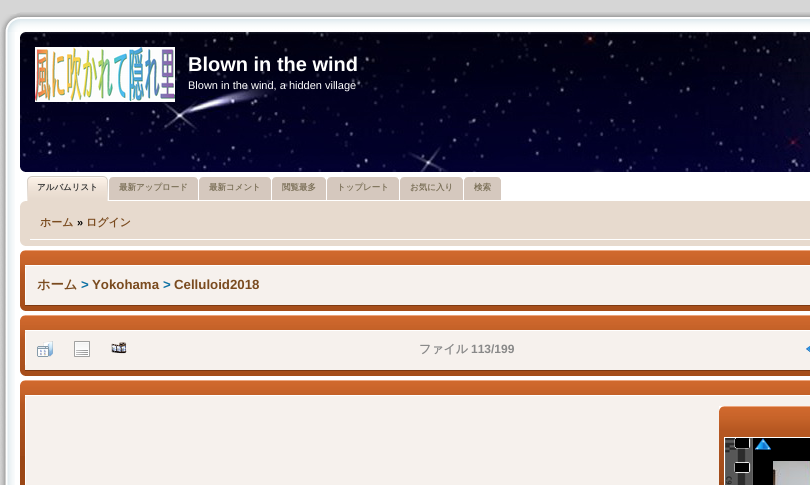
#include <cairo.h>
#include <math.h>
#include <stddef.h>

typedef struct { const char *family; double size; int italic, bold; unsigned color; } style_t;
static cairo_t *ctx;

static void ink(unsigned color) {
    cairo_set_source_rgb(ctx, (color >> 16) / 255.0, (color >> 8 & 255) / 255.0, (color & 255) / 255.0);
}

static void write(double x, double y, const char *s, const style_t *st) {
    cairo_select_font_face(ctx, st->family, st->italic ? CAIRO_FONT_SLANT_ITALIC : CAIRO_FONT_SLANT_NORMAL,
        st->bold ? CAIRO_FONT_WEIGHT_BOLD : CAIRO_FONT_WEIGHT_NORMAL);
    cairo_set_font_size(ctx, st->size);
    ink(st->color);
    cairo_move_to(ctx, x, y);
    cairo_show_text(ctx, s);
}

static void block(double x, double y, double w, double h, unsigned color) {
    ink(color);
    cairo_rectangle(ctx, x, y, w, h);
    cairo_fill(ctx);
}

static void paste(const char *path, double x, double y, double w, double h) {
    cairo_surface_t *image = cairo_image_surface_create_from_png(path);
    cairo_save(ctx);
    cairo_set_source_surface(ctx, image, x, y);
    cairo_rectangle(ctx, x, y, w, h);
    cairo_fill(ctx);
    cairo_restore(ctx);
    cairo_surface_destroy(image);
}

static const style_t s1 = {"Liberation Sans", 20, 0, 1, 0xffffff};
static const style_t s2 = {"Liberation Sans", 11, 0, 0, 0xffffff};
static const style_t s3 = {"WenQuanYi Zen Hei", 8.5, 0, 1, 0x333333};
static const style_t s4 = {"WenQuanYi Zen Hei", 8.5, 0, 1, 0x7c7159};
static const style_t s5 = {"WenQuanYi Zen Hei", 11, 0, 1, 0x7a4b1f};
static const style_t s6 = {"Liberation Sans", 11, 0, 1, 0x000000};
static const style_t s7 = {"WenQuanYi Zen Hei", 13.25, 0, 1, 0x7a4b1f};
static const style_t s8 = {"Liberation Sans", 13.25, 0, 1, 0x0e72a4};
static const style_t s9 = {"Liberation Sans", 13.25, 0, 1, 0x7a4b1f};
static const style_t s10 = {"WenQuanYi Zen Hei", 12, 0, 1, 0x898989};
static const style_t s11 = {"Liberation Sans", 12, 0, 1, 0x898989};

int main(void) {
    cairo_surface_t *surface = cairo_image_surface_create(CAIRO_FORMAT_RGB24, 810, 485);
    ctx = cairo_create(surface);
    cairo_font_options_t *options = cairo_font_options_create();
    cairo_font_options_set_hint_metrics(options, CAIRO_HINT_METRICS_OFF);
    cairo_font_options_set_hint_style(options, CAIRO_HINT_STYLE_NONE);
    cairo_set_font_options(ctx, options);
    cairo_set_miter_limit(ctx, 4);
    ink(0xd6d6d6);
    cairo_paint(ctx);
    paste("pic1.png", 1, 12, 19, 20);
    paste("pic2.png", 20, 12, 790, 20);
    block(15, 32, 795, 453, 0xffffff);
    paste("pic3.png", 0, 32, 15, 453);
    paste("pic4.png", 20, 32, 790, 140);
    paste("pic5.png", 20, 32, 6, 5);
    paste("pic6.png", 35, 47, 140, 55);
    write(188, 71, "Blown in the wind", &s1);
    write(188, 89, "Blown in the wind, a hidden village", &s2);
    paste("pic7.png", 20, 167, 5, 5);
    paste("pic8.png", 27, 176, 76, 25);
    paste("pic9.png", 103, 176, 5, 25);
    write(37, 190, "アルバムリスト", &s3);
    paste("pic10.png", 109, 177, 89, 23);
    paste("pic11.png", 194, 177, 4, 3);
    write(119, 190, "最新アップロード", &s4);
    paste("pic12.png", 199, 177, 72, 23);
    paste("pic11.png", 267, 177, 4, 3);
    write(209, 190, "最新コメント", &s4);
    paste("pic13.png", 272, 177, 54, 23);
    paste("pic11.png", 322, 177, 4, 3);
    write(282, 190, "閲覧最多", &s4);
    paste("pic14.png", 327, 177, 72, 23);
    paste("pic11.png", 395, 177, 4, 3);
    write(337, 190, "トップレート", &s4);
    paste("pic15.png", 400, 177, 63, 23);
    paste("pic11.png", 459, 177, 4, 3);
    write(410, 190, "お気に入り", &s4);
    paste("pic16.png", 464, 177, 37, 23);
    paste("pic11.png", 497, 177, 4, 3);
    write(474, 190, "検索", &s4);
    block(20, 201, 790, 45, 0xe7dace);
    paste("pic17.png", 20, 201, 5, 5);
    block(30, 239, 780, 1, 0xffffff);
    write(40, 226, "ホーム", &s5);
    write(77, 226, "»", &s6);
    write(86, 226, "ログイン", &s5);
    paste("pic18.png", 20, 241, 5, 5);
    paste("pic19.png", 20, 250, 790, 61);
    paste("pic20.png", 20, 250, 5, 5);
    block(25, 266, 785, 39, 0xf6f1ed);
    block(25, 265, 785, 1, 0xffffff);
    block(25, 305, 785, 1, 0x7d3912);
    block(25, 268, 1, 34, 0xffffff);
    write(37, 289, "ホーム", &s7);
    write(81, 289, ">", &s8);
    write(92, 289, "Yokohama", &s9);
    write(163, 289, ">", &s8);
    write(174, 289, "Celluloid2018", &s9);
    paste("pic21.png", 20, 306, 5, 5);
    paste("pic19.png", 20, 315, 790, 61);
    paste("pic20.png", 20, 315, 5, 5);
    block(25, 331, 785, 39, 0xf6f1ed);
    block(25, 330, 785, 1, 0xffffff);
    block(25, 370, 785, 1, 0x7d3912);
    block(25, 333, 1, 32, 0xffffff);
    paste("pic22.png", 37, 341, 16, 16);
    paste("pic23.png", 74, 341, 16, 16);
    paste("pic24.png", 111, 342, 16, 12);
    write(419, 353, "ファイル", &s10);
    write(471, 353, "113/199", &s11);
    paste("pic25.png", 806, 346, 4, 6);
    paste("pic21.png", 20, 371, 5, 5);
    block(20, 456, 5, 29, 0x9b4716);
    paste("pic26.png", 20, 380, 790, 76);
    paste("pic20.png", 20, 380, 5, 5);
    block(25, 396, 785, 89, 0xf6f1ed);
    block(25, 395, 785, 1, 0xffffff);
    block(25, 398, 1, 87, 0xffffff);
    block(719, 482, 5, 3, 0x9b4716);
    paste("pic27.png", 719, 406, 91, 76);
    paste("pic20.png", 719, 406, 5, 5);
    block(724, 437, 86, 1, 0xffffff);
    block(724, 438, 1, 47, 0xffffff);
    block(735, 438, 75, 47, 0x000000);
    paste("pic28.png", 725, 438, 28, 47);
    paste("pic29.png", 755, 438, 16, 12);
    paste("pic30.png", 773, 461, 37, 24);
    cairo_surface_write_to_png(surface, "screenshot.png");
    cairo_font_options_destroy(options);
    cairo_destroy(ctx);
    cairo_surface_destroy(surface);
    return 0;
}
